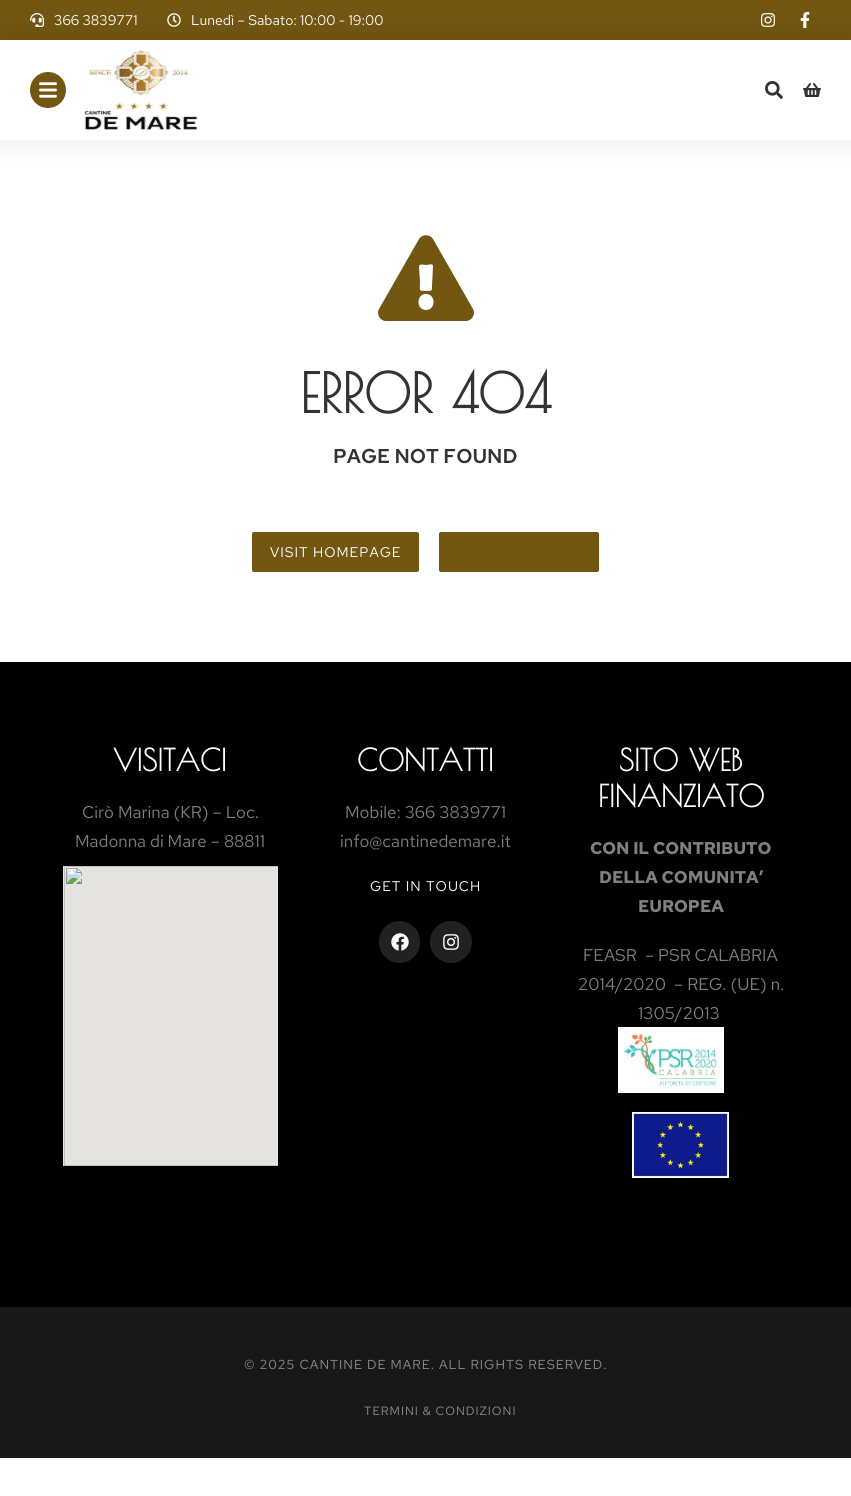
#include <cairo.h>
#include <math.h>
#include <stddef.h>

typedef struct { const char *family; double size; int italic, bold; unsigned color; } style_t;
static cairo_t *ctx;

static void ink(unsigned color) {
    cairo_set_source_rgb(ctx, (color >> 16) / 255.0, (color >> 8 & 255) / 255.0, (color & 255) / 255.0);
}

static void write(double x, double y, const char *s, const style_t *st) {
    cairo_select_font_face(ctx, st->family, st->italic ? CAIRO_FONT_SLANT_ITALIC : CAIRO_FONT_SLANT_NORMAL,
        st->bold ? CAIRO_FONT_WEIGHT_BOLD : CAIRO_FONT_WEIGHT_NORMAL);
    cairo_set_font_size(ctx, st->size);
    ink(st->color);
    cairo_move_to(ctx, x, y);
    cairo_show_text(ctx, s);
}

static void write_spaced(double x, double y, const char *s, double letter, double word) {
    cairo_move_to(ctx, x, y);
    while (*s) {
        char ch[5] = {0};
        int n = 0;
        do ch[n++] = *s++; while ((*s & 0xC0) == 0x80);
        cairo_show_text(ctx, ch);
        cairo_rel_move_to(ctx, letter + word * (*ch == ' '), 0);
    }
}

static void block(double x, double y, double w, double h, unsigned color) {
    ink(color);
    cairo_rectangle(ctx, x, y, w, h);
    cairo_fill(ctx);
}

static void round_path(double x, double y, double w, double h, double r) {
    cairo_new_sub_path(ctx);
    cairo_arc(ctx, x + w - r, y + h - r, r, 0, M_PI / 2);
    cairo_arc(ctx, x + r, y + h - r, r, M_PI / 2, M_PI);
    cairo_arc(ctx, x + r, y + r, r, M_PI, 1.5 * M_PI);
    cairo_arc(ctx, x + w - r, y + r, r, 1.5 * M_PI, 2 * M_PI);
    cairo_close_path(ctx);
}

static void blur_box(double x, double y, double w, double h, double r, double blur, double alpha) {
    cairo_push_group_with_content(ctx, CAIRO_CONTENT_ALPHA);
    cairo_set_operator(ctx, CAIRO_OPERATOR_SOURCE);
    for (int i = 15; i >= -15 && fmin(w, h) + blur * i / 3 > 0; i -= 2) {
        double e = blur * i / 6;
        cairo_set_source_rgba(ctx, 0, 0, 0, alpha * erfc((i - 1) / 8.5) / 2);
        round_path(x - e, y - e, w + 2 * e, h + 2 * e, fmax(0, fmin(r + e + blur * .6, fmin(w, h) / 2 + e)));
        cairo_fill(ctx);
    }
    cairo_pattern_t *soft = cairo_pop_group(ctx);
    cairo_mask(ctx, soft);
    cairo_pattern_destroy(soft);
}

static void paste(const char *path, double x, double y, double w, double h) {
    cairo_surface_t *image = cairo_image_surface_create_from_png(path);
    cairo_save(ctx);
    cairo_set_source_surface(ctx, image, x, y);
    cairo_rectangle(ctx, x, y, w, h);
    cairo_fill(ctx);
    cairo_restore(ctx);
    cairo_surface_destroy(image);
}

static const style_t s1 = {"Red Hat Text", 14, 0, 0, 0xffffff};
static const style_t s2 = {"Poiret One", 54, 0, 1, 0x333333};
static const style_t s3 = {"Red Hat Text SemiBold", 20, 0, 0, 0x333333};
static const style_t s4 = {"Poiret One", 30, 0, 1, 0xffffff};
static const style_t s5 = {"Red Hat Text", 17, 0, 0, 0x808080};
static const style_t s6 = {"Red Hat Text", 17, 0, 1, 0x808080};

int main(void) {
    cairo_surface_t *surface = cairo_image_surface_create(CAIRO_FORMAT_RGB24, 851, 1496);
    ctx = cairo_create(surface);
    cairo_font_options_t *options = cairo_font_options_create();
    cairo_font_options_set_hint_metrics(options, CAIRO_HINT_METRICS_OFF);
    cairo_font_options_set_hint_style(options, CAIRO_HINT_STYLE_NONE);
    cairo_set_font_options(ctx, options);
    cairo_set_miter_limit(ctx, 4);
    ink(0xffffff);
    cairo_paint(ctx);
    block(0, 0, 851, 40, 0x735611);
    paste("pic5.png", 30, 13, 14, 14);
    paste("pic6.png", 167, 13, 14, 14);
    paste("pic7.png", 761, 13, 14, 14);
    paste("pic8.png", 800, 12, 10, 16);
    cairo_save(ctx);
    cairo_set_fill_rule(ctx, CAIRO_FILL_RULE_EVEN_ODD);
    cairo_new_path(ctx);
    cairo_move_to(ctx, 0, 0);
    cairo_line_to(ctx, 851, 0);
    cairo_line_to(ctx, 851, 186);
    cairo_line_to(ctx, 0, 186);
    cairo_close_path(ctx);
    cairo_move_to(ctx, 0, 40);
    cairo_line_to(ctx, 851, 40);
    cairo_line_to(ctx, 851, 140);
    cairo_line_to(ctx, 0, 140);
    cairo_close_path(ctx);
    cairo_clip(ctx);
    ink(0x000000);
    blur_box(0, 40, 851, 100, 0, 15, 0.1);
    cairo_restore(ctx);
    cairo_arc(ctx, 48, 90, 18, 0, 2 * M_PI);
    cairo_fill(ctx);
    paste("pic1.png", 39, 82, 18, 16);
    paste("pic2.png", 84, 50, 114, 80);
    paste("pic3.png", 765, 81, 18, 18);
    paste("pic4.png", 803, 83, 18, 14);
    write(54, 25, "366 3839771", &s1);
    write(191, 25, "Lunedì – Sabato: 10:00 - 19:00", &s1);
    ink(0x735611);
    cairo_new_path(ctx);
    cairo_move_to(ctx, 473, 309);
    cairo_curve_to(ctx, 476, 314, 472, 321, 466, 321);
    cairo_line_to(ctx, 386, 321);
    cairo_curve_to(ctx, 380, 321, 376, 314, 379, 309);
    cairo_line_to(ctx, 419, 239);
    cairo_curve_to(ctx, 422, 234, 430, 234, 433, 239);
    cairo_close_path(ctx);
    cairo_move_to(ctx, 426, 294);
    cairo_curve_to(ctx, 416, 294, 416, 310, 426, 310);
    cairo_curve_to(ctx, 436, 310, 436, 294, 426, 294);
    cairo_close_path(ctx);
    cairo_move_to(ctx, 419, 267);
    cairo_line_to(ctx, 420, 282);
    cairo_curve_to(ctx, 420, 291, 418, 291, 427, 291);
    cairo_curve_to(ctx, 432, 291, 432, 291, 432, 286);
    cairo_line_to(ctx, 433, 266);
    cairo_curve_to(ctx, 433, 263, 428, 265, 426, 265);
    cairo_curve_to(ctx, 424, 265, 419, 263, 419, 267);
    cairo_close_path(ctx);
    cairo_fill(ctx);
    write(300, 413, "ERROR 404", &s2);
    write(333, 463, "PAGE NOT FOUND", &s3);
    ink(0x735611);
    round_path(252, 532, 167, 40, 2);
    cairo_fill(ctx);
    cairo_select_font_face(ctx, "Red Hat Text", CAIRO_FONT_SLANT_NORMAL, CAIRO_FONT_WEIGHT_NORMAL);
    cairo_set_font_size(ctx, 14);
    ink(0xffffff);
    write_spaced(270, 557, "VISIT HOMEPAGE", 1, 0);
    ink(0x735611);
    round_path(439, 532, 160, 40, 2);
    cairo_fill(ctx);
    block(0, 662, 851, 645, 0x000000);
    write(113, 771, "VISITACI", &s4);
    write(82, 818, "Cirò Marina (KR) – Loc.", &s5);
    write(75, 847, "Madonna di Mare – 88811", &s5);
    paste("pic9.png", 63, 866, 215, 300);
    write(357, 771, "CONTATTI", &s4);
    write(345, 818, "Mobile: 366 3839771", &s5);
    write(340, 847, "info@cantinedemare.it", &s5);
    cairo_set_font_size(ctx, 14);
    ink(0xffffff);
    write_spaced(370, 891, "GET IN TOUCH", 1, 0);
    ink(0x212121);
    round_path(379, 921, 41, 42, 20.5);
    cairo_fill(ctx);
    paste("pic10.png", 391, 933, 18, 18);
    cairo_arc(ctx, 451, 942, 21, 0, 2 * M_PI);
    cairo_fill(ctx);
    paste("pic11.png", 443, 934, 16, 16);
    write(619, 771, "SITO WEB", &s4);
    write(598, 807, "FINANZIATO", &s4);
    write(590, 854, "CON IL CONTRIBUTO", &s6);
    write(599, 883, "DELLA COMUNITA’", &s6);
    write(638, 912, "EUROPEA", &s6);
    write(583, 961, "FEASR  – PSR CALABRIA", &s5);
    write(578, 990, "2014/2020  – REG. (UE) n.", &s5);
    write(638, 1019, "1305/2013", &s5);
    paste("pic12.png", 618, 1027, 106, 66);
    paste("pic13.png", 632, 1112, 97, 66);
    block(0, 1307, 851, 151, 0x181818);
    cairo_set_font_size(ctx, 13);
    ink(0x8c8c8c);
    write_spaced(244, 1369, "© 2025 CANTINE DE MARE. ALL RIGHTS RESERVED.", 1, 0);
    cairo_set_font_size(ctx, 12);
    write_spaced(364, 1415, "TERMINI & CONDIZIONI", 1, 0);
    cairo_surface_write_to_png(surface, "screenshot.png");
    cairo_font_options_destroy(options);
    cairo_destroy(ctx);
    cairo_surface_destroy(surface);
    return 0;
}
